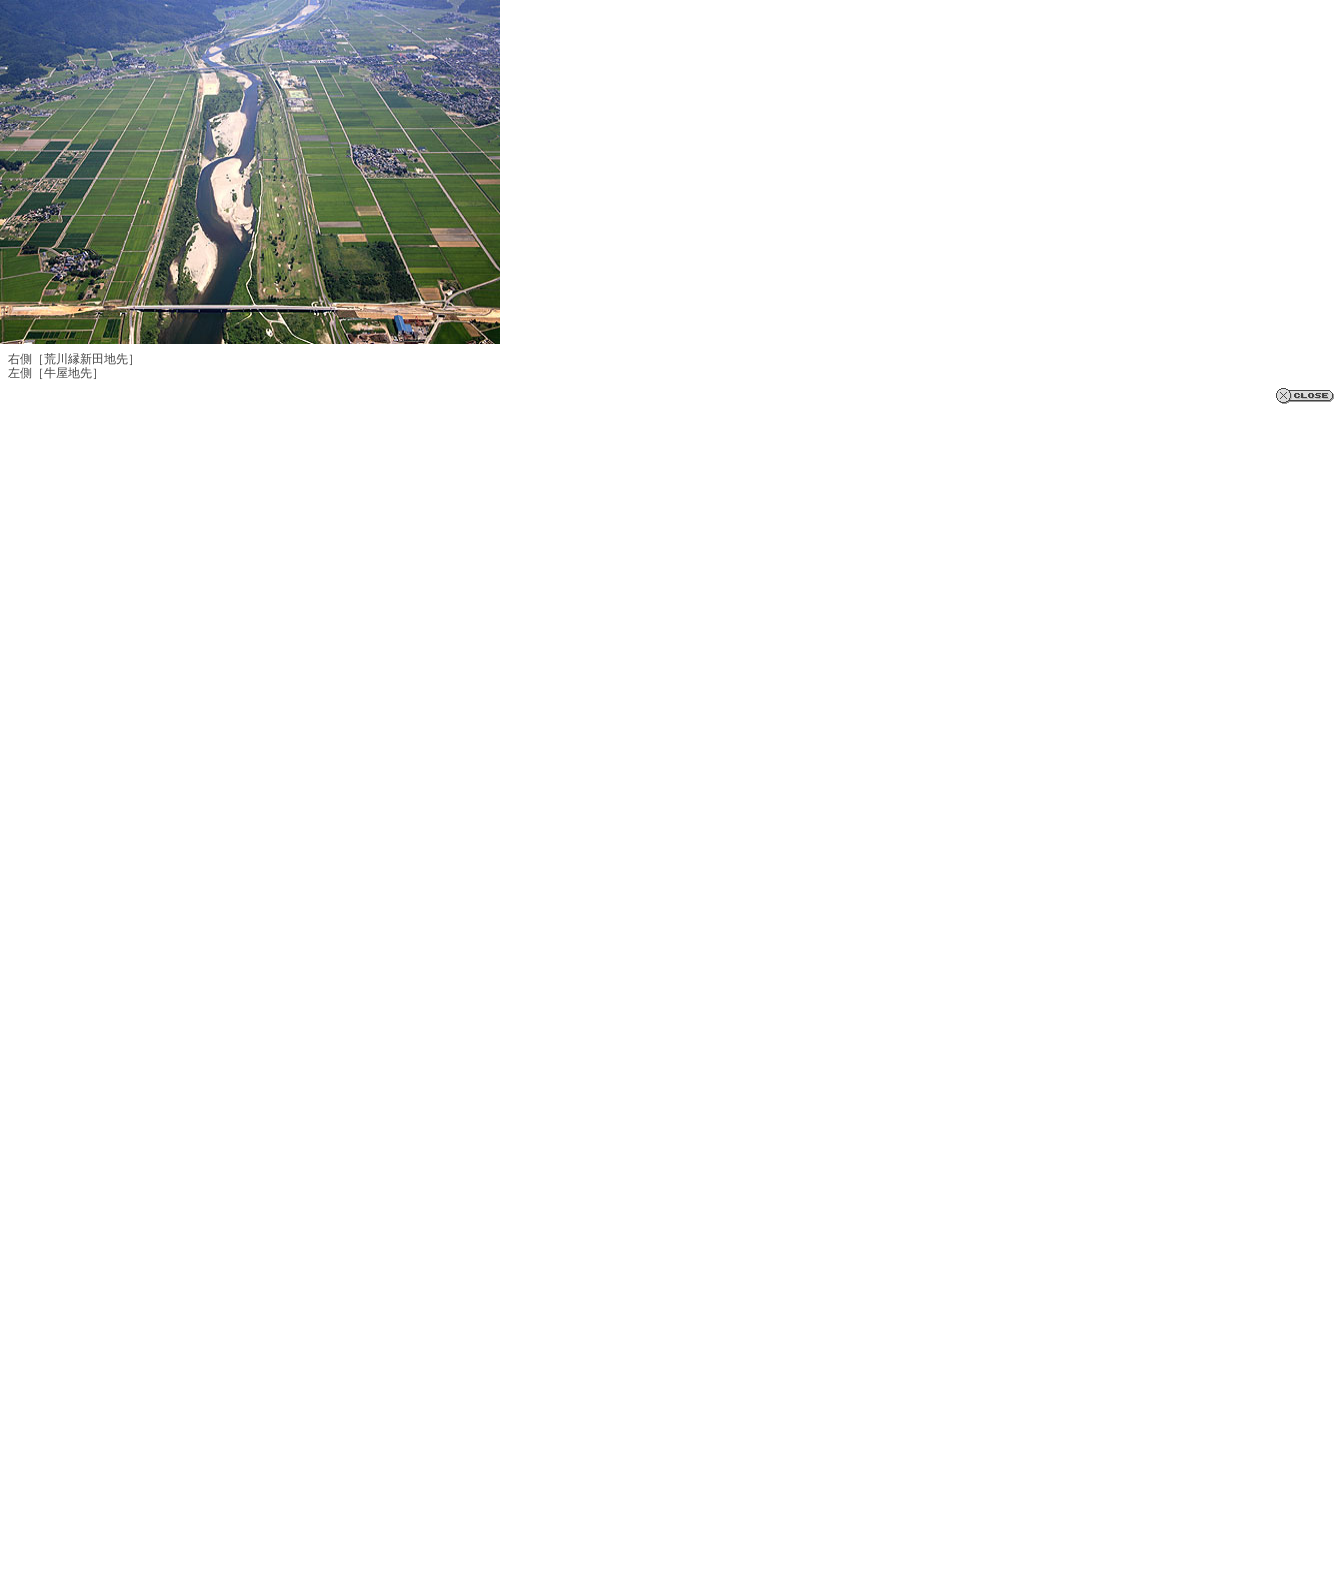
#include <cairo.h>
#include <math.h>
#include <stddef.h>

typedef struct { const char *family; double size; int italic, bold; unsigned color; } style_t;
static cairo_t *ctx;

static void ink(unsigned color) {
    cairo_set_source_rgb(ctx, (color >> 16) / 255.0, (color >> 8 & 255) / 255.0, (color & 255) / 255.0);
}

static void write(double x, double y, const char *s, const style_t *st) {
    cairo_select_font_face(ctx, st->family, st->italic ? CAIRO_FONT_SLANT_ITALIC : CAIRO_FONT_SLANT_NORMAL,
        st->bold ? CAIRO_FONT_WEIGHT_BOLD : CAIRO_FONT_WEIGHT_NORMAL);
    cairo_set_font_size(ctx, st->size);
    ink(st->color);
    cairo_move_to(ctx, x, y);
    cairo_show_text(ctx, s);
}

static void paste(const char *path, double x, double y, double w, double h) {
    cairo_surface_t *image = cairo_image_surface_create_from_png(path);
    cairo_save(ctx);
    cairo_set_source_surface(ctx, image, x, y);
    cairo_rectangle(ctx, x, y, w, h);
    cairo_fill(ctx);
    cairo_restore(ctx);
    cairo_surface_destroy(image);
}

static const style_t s1 = {"WenQuanYi Zen Hei Medium", 12, 0, 0, 0x444444};

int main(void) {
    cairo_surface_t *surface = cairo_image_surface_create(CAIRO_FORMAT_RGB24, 1342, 1585);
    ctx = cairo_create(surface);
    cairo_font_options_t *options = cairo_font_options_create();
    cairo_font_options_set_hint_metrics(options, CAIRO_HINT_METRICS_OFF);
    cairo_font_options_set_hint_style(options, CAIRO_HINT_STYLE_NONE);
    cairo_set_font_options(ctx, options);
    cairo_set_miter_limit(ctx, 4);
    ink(0xffffff);
    cairo_paint(ctx);
    paste("pic1.png", 0, 0, 500, 344);
    write(8, 363, "右側［荒川縁新田地先］", &s1);
    write(8, 377, "左側［牛屋地先］", &s1);
    paste("pic2.png", 1276, 388, 58, 16);
    cairo_surface_write_to_png(surface, "screenshot.png");
    cairo_font_options_destroy(options);
    cairo_destroy(ctx);
    cairo_surface_destroy(surface);
    return 0;
}
